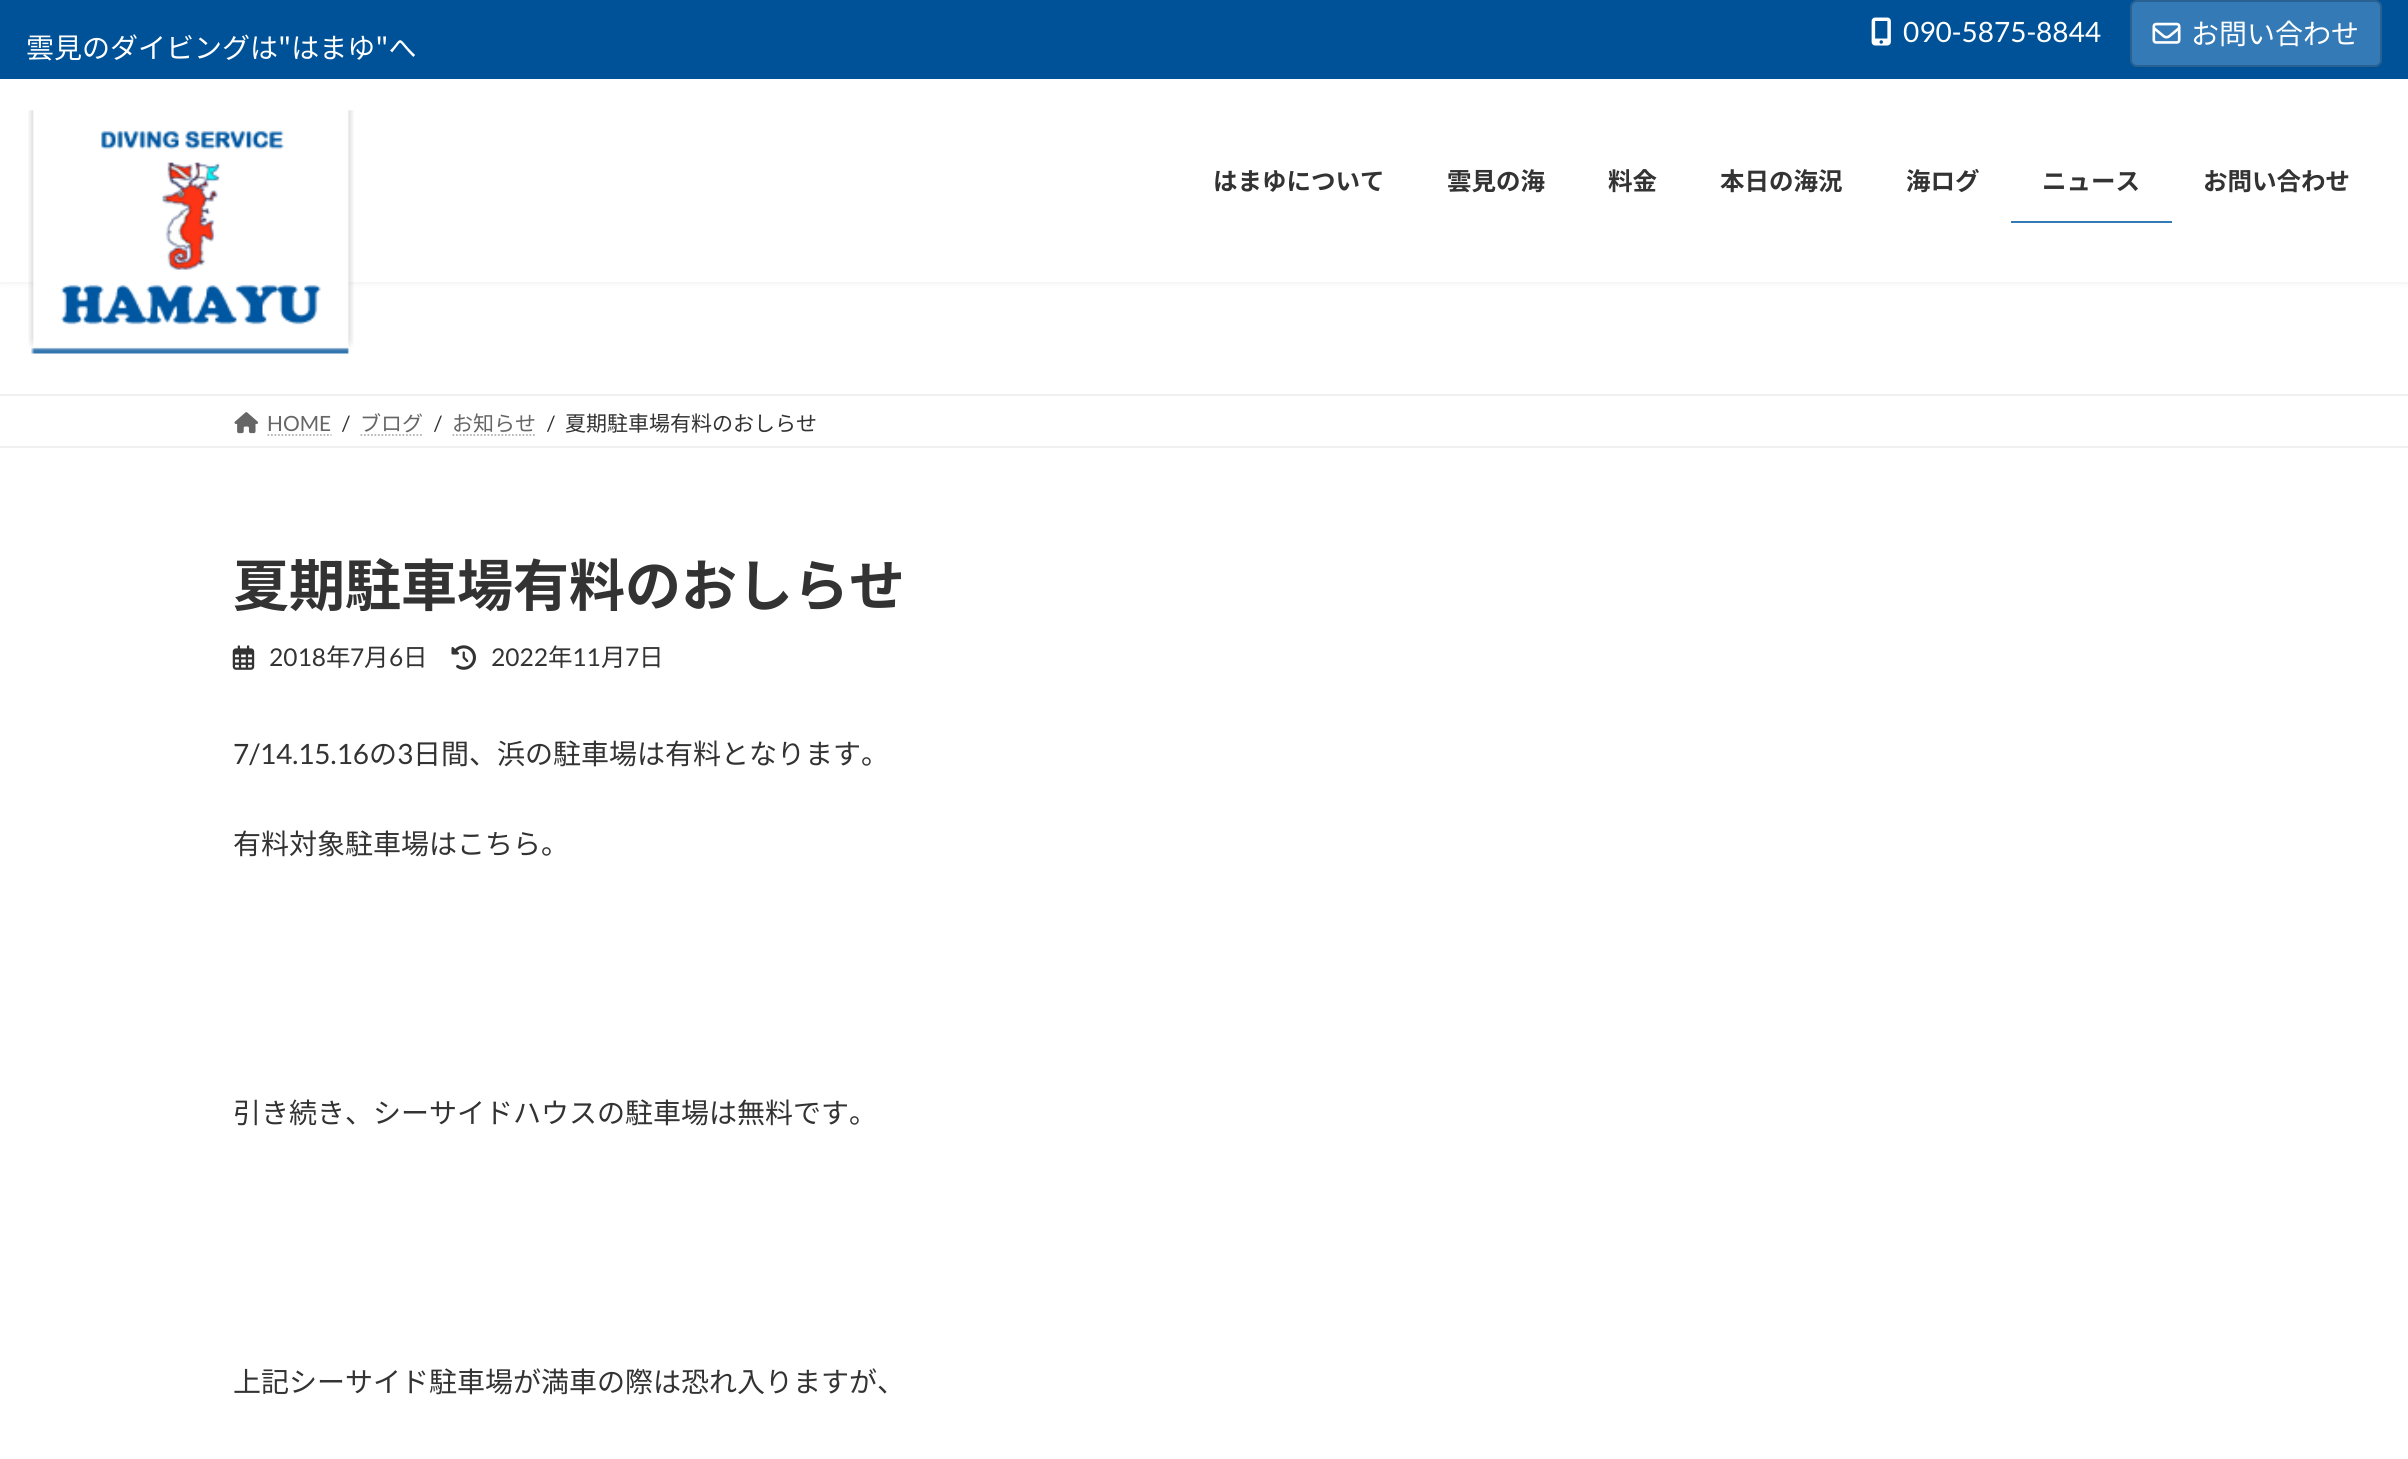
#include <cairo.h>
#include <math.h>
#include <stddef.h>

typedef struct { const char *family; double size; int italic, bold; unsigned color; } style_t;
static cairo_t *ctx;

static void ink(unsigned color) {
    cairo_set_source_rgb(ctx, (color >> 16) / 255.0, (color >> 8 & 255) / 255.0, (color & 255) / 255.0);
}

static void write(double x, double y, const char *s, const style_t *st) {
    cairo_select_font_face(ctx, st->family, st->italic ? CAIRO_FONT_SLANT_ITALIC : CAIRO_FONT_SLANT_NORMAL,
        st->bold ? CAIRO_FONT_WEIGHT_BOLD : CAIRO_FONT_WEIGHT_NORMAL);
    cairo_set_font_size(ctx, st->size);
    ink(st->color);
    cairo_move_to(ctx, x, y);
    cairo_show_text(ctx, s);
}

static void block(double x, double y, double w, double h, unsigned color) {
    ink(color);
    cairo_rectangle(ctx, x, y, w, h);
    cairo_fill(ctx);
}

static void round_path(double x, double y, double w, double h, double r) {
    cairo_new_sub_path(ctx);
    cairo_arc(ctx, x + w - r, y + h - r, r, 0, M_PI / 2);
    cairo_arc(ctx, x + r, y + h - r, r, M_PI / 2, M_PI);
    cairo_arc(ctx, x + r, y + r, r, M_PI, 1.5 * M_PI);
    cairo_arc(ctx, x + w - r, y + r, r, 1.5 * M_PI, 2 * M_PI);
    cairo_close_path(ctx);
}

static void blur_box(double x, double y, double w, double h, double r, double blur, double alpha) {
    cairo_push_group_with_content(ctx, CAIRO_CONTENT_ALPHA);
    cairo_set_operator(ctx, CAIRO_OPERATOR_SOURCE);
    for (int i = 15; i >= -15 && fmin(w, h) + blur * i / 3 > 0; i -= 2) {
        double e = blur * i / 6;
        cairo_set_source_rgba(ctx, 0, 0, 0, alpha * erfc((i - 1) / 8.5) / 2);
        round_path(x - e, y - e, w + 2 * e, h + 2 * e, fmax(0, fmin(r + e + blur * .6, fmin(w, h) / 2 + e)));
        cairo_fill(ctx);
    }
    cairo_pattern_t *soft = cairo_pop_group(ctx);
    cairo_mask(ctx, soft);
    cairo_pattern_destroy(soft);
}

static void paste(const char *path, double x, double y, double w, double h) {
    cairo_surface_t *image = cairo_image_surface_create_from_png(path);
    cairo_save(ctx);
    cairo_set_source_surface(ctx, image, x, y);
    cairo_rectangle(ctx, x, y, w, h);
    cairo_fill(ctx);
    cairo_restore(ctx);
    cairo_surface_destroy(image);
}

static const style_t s1 = {"Noto Sans JP", 28, 0, 0, 0xffffff};
static const style_t s2 = {"Lato", 28, 0, 0, 0xffffff};
static const style_t s3 = {"Noto Sans JP", 24.5, 0, 1, 0x333333};
static const style_t s4 = {"Lato", 21, 0, 0, 0x666666};
static const style_t s5 = {"Lato", 21, 0, 0, 0x333333};
static const style_t s6 = {"Noto Sans JP", 21, 0, 0, 0x666666};
static const style_t s7 = {"Noto Sans JP", 21, 0, 0, 0x333333};
static const style_t s8 = {"Noto Sans JP", 56, 0, 1, 0x333333};
static const style_t s9 = {"Lato", 24.5, 0, 0, 0x333333};
static const style_t s10 = {"Noto Sans JP", 24.5, 0, 0, 0x333333};
static const style_t s11 = {"Lato", 28, 0, 0, 0x333333};
static const style_t s12 = {"Noto Sans JP", 28, 0, 0, 0x333333};

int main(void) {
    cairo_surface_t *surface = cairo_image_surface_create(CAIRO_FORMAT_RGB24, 2408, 1459);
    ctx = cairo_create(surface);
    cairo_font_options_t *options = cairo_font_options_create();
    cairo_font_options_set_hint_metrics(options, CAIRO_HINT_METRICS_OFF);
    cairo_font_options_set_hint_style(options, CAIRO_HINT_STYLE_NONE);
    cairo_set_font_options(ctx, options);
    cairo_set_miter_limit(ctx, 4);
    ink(0xffffff);
    cairo_paint(ctx);
    ink(0x000000);
    blur_box(0, 2, 2408, 282, 0, 2.5, 0.05);
    block(0, 79, 2408, 203, 0xffffff);
    block(0, 0, 2408, 79, 0x005298);
    write(26, 58, "雲見のダイビングは\"はまゆ\"へ", &s1);
    paste("pic1.png", 1871, 17, 20, 29);
    write(1903, 42, "090-5875-8844", &s2);
    ink(0x337ab7);
    round_path(2131, 1, 250, 65, 6);
    cairo_fill_preserve(ctx);
    ink(0x296292);
    cairo_stroke(ctx);
    paste("pic2.png", 2152, 22, 29, 22);
    write(2191, 44, "お問い合わせ", &s1);
    paste("pic3.png", 28, 110, 326, 244);
    write(1213, 190, "はまゆについて", &s3);
    write(1447, 190, "雲見の海", &s3);
    write(1608, 190, "料金", &s3);
    write(1720, 190, "本日の海況", &s3);
    write(1906, 190, "海ログ", &s3);
    write(2042, 190, "ニュース", &s3);
    block(2011, 221, 161, 2, 0x337ab7);
    write(2203, 190, "お問い合わせ", &s3);
    block(0, 394, 2408, 2, 0xf0f0f0);
    block(0, 446, 2408, 2, 0xf0f0f0);
    paste("pic4.png", 234, 412, 25, 22);
    write(267, 431, "HOME", &s4);
    cairo_new_path(ctx);
    cairo_move_to(ctx, 267.5, 435);
    cairo_line_to(ctx, 331.5, 435);
    ink(0xb3b3b3);
    cairo_set_line_width(ctx, 1.8);
    cairo_set_dash(ctx, (double[]){1.75, 1.75}, 2, 0);
    cairo_stroke(ctx);
    write(342, 431, "/", &s5);
    write(360, 431, "ブログ", &s6);
    cairo_new_path(ctx);
    cairo_move_to(ctx, 360.5, 435);
    cairo_line_to(ctx, 423.5, 435);
    ink(0xb3b3b3);
    cairo_stroke(ctx);
    write(434, 431, "/", &s5);
    write(452, 431, "お知らせ", &s6);
    cairo_new_path(ctx);
    cairo_move_to(ctx, 452.5, 435);
    cairo_line_to(ctx, 536.5, 435);
    ink(0xb3b3b3);
    cairo_stroke(ctx);
    write(547, 431, "/", &s5);
    write(565, 431, "夏期駐車場有料のおしらせ", &s7);
    write(233, 606, "夏期駐車場有料のおしらせ", &s8);
    paste("pic5.png", 232, 645, 23, 25);
    write(269, 666, "2018", &s9);
    write(326, 666, "年", &s10);
    write(350, 666, "7", &s9);
    write(364, 666, "月", &s10);
    write(389, 666, "6", &s9);
    write(403, 666, "日", &s10);
    paste("pic6.png", 451, 645, 25, 25);
    write(491, 666, "2022", &s9);
    write(548, 666, "年", &s10);
    write(572, 666, "11", &s9);
    write(601, 666, "月", &s10);
    write(625, 666, "7", &s9);
    write(639, 666, "日", &s10);
    write(233, 764, "7/14.15.16", &s11);
    write(369, 764, "の", &s12);
    write(397, 764, "3", &s11);
    write(413, 764, "日間、浜の駐車場は有料となります。", &s12);
    write(233, 854, "有料対象駐車場はこちら。", &s12);
    write(233, 1123, "引き続き、シーサイドハウスの駐車場は無料です。", &s12);
    write(233, 1392, "上記シーサイド駐車場が満車の際は恐れ入りますが、", &s12);
    cairo_surface_write_to_png(surface, "screenshot.png");
    cairo_font_options_destroy(options);
    cairo_destroy(ctx);
    cairo_surface_destroy(surface);
    return 0;
}
